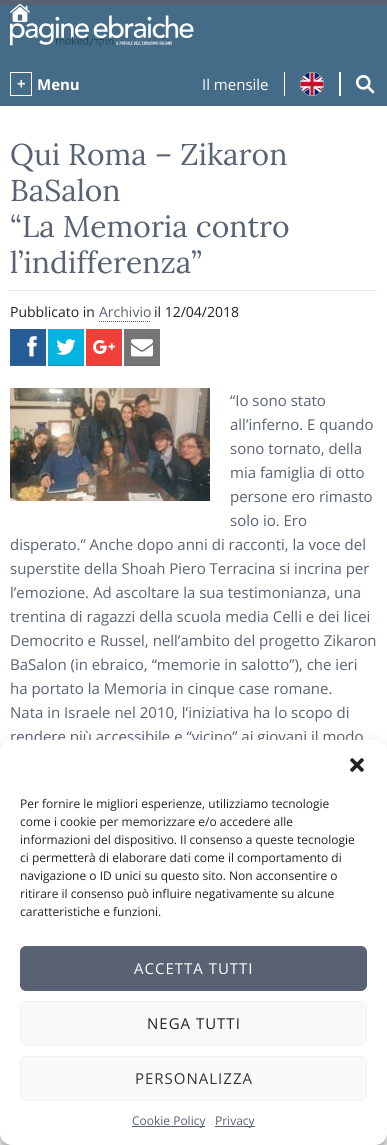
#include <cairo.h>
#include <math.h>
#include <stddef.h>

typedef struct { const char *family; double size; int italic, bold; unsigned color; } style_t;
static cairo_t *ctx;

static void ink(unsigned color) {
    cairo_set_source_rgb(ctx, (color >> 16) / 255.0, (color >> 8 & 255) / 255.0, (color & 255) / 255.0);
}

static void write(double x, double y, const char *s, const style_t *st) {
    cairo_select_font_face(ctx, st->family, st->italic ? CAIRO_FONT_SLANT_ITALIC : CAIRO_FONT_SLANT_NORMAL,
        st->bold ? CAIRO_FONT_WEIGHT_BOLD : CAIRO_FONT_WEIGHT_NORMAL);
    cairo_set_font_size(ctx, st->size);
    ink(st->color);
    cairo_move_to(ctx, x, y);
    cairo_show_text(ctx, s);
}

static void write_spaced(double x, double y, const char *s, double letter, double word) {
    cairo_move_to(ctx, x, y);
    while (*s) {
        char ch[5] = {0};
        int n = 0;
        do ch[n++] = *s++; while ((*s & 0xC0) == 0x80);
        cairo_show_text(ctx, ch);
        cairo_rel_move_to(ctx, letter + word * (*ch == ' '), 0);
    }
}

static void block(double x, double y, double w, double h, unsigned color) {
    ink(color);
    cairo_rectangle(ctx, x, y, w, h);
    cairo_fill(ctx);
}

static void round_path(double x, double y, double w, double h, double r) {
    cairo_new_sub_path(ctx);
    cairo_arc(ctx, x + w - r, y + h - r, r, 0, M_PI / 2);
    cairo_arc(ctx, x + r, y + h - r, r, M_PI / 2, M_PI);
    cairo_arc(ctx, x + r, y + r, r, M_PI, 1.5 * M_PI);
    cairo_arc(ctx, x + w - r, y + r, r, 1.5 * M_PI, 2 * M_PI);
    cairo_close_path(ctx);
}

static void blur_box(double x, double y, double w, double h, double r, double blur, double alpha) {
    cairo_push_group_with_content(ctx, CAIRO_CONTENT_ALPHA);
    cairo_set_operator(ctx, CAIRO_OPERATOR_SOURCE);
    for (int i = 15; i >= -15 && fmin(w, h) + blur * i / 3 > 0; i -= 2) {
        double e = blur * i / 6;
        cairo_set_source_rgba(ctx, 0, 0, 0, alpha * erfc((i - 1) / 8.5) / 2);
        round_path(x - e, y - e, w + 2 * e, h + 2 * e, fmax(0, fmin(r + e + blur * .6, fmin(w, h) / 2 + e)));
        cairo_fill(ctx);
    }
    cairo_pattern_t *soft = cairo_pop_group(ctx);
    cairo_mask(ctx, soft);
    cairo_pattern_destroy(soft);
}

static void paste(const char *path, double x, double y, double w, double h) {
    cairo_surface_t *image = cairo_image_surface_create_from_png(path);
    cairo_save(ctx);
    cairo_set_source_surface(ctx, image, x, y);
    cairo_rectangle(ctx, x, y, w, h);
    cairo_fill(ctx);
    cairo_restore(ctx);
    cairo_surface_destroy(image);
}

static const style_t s1 = {"Open Sans", 15, 0, 1, 0xffffff};
static const style_t s2 = {"Open Sans", 15, 0, 0, 0xffffff};
static const style_t s3 = {"Lora", 30, 0, 0, 0x586272};
static const style_t s4 = {"Open Sans", 14, 0, 0, 0x222222};
static const style_t s5 = {"Open Sans", 14, 0, 0, 0x586272};
static const style_t s6 = {"Open Sans", 15, 0, 0, 0x586272};
static const style_t s7 = {"Open Sans", 12, 0, 0, 0x222222};
static const style_t s8 = {"Open Sans", 12, 0, 0, 0x586272};

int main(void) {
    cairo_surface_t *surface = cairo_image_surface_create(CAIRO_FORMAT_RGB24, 387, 1145);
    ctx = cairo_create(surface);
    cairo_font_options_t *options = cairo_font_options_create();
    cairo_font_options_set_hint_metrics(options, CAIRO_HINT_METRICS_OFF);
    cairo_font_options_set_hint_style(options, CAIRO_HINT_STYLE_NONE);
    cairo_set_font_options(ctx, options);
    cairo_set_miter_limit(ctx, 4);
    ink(0xffffff);
    cairo_paint(ctx);
    block(0, 0, 387, 5, 0x586272);
    block(0, 5, 387, 101, 0x446c88);
    paste("pic2.png", 10, 15, 184, 31);
    paste("pic1.png", 10, 4, 20, 18);
    cairo_rectangle(ctx, 10.5, 72.5, 21, 23);
    ink(0xffffff);
    cairo_set_line_width(ctx, 1);
    cairo_stroke(ctx);
    write(17, 89, "+", &s1);
    write(37, 90, "Menu", &s1);
    block(284, 72, 1, 24, 0xffffff);
    write(202, 90, "Il mensile", &s2);
    paste("pic3.png", 300, 72, 24, 24);
    block(339, 72, 2, 24, 0xffffff);
    paste("pic4.png", 356, 75, 19, 19);
    write(10, 165, "Qui Roma – Zikaron", &s3);
    write(10, 201, "BaSalon", &s3);
    write(10, 237, "“La Memoria contro", &s3);
    write(10, 273, "l’indifferenza”", &s3);
    block(10, 290, 367, 1, 0xe2e6eb);
    write(10, 317, "Pubblicato in", &s4);
    write(99, 317, "Archivio", &s5);
    cairo_new_path(ctx);
    cairo_move_to(ctx, 99, 321.5);
    cairo_line_to(ctx, 151, 321.5);
    cairo_set_dash(ctx, (double[]){1, 1}, 2, 0);
    cairo_stroke(ctx);
    write(154, 317, "il 12/04/2018", &s4);
    block(10, 329, 36, 37, 0x255c95);
    cairo_new_path(ctx);
    cairo_move_to(ctx, 10, 365.5);
    cairo_line_to(ctx, 46, 365.5);
    ink(0x586272);
    cairo_stroke(ctx);
    paste("pic5.png", 27, 336, 10, 21);
    block(48, 329, 36, 37, 0x00b4e0);
    cairo_new_path(ctx);
    cairo_move_to(ctx, 48, 365.5);
    cairo_line_to(ctx, 84, 365.5);
    ink(0x586272);
    cairo_stroke(ctx);
    paste("pic6.png", 56, 339, 20, 16);
    block(86, 329, 36, 37, 0xf1403a);
    cairo_new_path(ctx);
    cairo_move_to(ctx, 86, 365.5);
    cairo_line_to(ctx, 122, 365.5);
    ink(0x586272);
    cairo_stroke(ctx);
    paste("pic7.png", 93, 340, 22, 14);
    block(124, 329, 36, 37, 0x757575);
    cairo_new_path(ctx);
    cairo_move_to(ctx, 124, 365.5);
    cairo_line_to(ctx, 160, 365.5);
    ink(0x586272);
    cairo_stroke(ctx);
    paste("pic8.png", 131, 339, 22, 18);
    paste("pic9.png", 10, 388, 200, 113);
    write(230, 406, "“Io sono stato", &s6);
    write(230, 430, "all’inferno. E quando", &s6);
    write(230, 454, "sono tornato, della", &s6);
    write(230, 478, "mia famiglia di otto", &s6);
    write(230, 502, "persone ero rimasto", &s6);
    write(230, 526, "solo io. Ero", &s6);
    write(10, 550, "disperato.” Anche dopo anni di racconti, la voce del", &s6);
    write(10, 574, "superstite della Shoah Piero Terracina si incrina per", &s6);
    write(10, 598, "l’emozione. Ad ascoltare la sua testimonianza, una", &s6);
    write(10, 622, "trentina di ragazzi della scuola media Celli e dei licei", &s6);
    write(10, 646, "Democrito e Russel, nell’ambito del progetto Zikaron", &s6);
    write(10, 670, "BaSalon (in ebraico, “memorie in salotto”), che ieri", &s6);
    write(10, 694, "ha portato la Memoria in cinque case romane.", &s6);
    write(10, 718, "Nata in Israele nel 2010, l’iniziativa ha lo scopo di", &s6);
    write(10, 742, "rendere più accessibile e “vicino” ai giovani il modo", &s6);
    ink(0x000000);
    blur_box(0, 746, 387, 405, 12, 3, 0.23);
    blur_box(0, 750, 387, 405, 12, 10, 0.19);
    ink(0xffffff);
    round_path(0, 740, 387, 405, 12);
    cairo_fill(ctx);
    paste("pic10.png", 350, 758, 14, 14);
    write(20, 808, "Per fornire le migliori esperienze, utilizziamo tecnologie", &s7);
    write(20, 826, "come i cookie per memorizzare e/o accedere alle", &s7);
    write(20, 844, "informazioni del dispositivo. Il consenso a queste tecnologie", &s7);
    write(20, 862, "ci permetterà di elaborare dati come il comportamento di", &s7);
    write(20, 880, "navigazione o ID unici su questo sito. Non acconsentire o", &s7);
    write(20, 898, "ritirare il consenso può influire negativamente su alcune", &s7);
    write(20, 916, "caratteristiche e funzioni.", &s7);
    ink(0x586272);
    round_path(20.5, 946.5, 346, 44, 5.5);
    cairo_fill_preserve(ctx);
    cairo_set_dash(ctx, NULL, 0, 0);
    cairo_stroke(ctx);
    cairo_set_font_size(ctx, 15);
    ink(0xffffff);
    write_spaced(134, 974, "ACCETTA TUTTI", 1, 0);
    ink(0xf9f9f9);
    round_path(20.5, 1001.5, 346, 44, 5.5);
    cairo_fill_preserve(ctx);
    ink(0xf2f2f2);
    cairo_stroke(ctx);
    ink(0x222222);
    write_spaced(147, 1029, "NEGA TUTTI", 1, 0);
    ink(0xf9f9f9);
    round_path(20.5, 1056.5, 346, 44, 5.5);
    cairo_fill_preserve(ctx);
    ink(0xf2f2f2);
    cairo_stroke(ctx);
    ink(0x333333);
    write_spaced(135, 1084, "PERSONALIZZA", 1, 0);
    block(132, 1126, 73, 1, 0x586272);
    write(132, 1125, "Cookie Policy", &s8);
    block(215, 1126, 40, 1, 0x586272);
    write(215, 1125, "Privacy", &s8);
    cairo_surface_write_to_png(surface, "screenshot.png");
    cairo_font_options_destroy(options);
    cairo_destroy(ctx);
    cairo_surface_destroy(surface);
    return 0;
}
